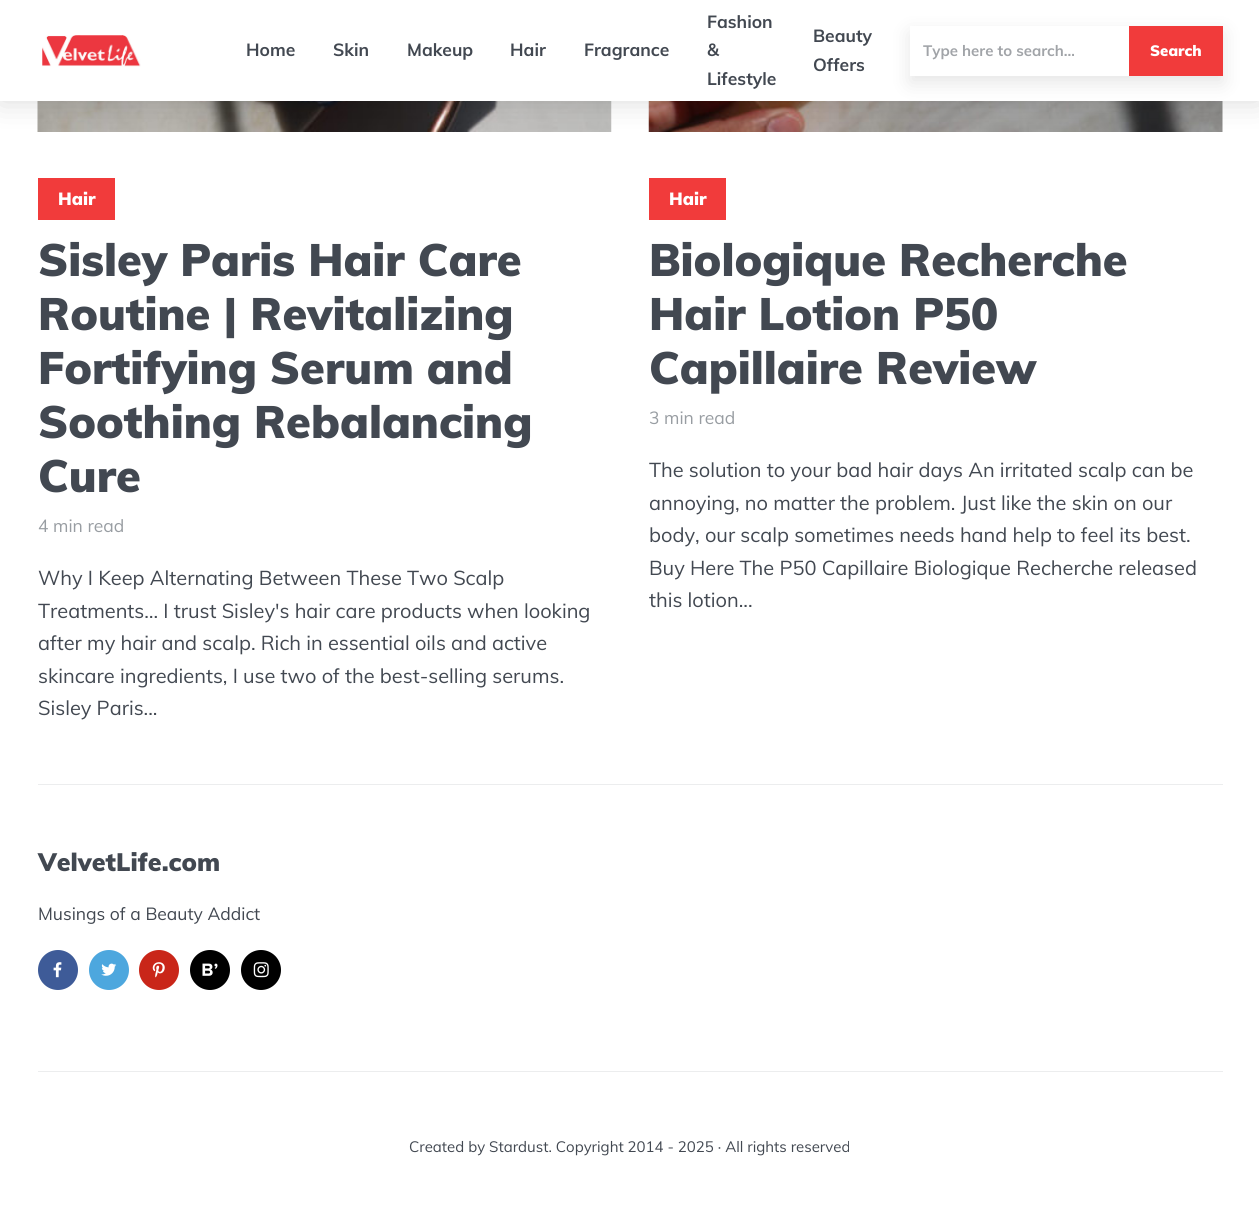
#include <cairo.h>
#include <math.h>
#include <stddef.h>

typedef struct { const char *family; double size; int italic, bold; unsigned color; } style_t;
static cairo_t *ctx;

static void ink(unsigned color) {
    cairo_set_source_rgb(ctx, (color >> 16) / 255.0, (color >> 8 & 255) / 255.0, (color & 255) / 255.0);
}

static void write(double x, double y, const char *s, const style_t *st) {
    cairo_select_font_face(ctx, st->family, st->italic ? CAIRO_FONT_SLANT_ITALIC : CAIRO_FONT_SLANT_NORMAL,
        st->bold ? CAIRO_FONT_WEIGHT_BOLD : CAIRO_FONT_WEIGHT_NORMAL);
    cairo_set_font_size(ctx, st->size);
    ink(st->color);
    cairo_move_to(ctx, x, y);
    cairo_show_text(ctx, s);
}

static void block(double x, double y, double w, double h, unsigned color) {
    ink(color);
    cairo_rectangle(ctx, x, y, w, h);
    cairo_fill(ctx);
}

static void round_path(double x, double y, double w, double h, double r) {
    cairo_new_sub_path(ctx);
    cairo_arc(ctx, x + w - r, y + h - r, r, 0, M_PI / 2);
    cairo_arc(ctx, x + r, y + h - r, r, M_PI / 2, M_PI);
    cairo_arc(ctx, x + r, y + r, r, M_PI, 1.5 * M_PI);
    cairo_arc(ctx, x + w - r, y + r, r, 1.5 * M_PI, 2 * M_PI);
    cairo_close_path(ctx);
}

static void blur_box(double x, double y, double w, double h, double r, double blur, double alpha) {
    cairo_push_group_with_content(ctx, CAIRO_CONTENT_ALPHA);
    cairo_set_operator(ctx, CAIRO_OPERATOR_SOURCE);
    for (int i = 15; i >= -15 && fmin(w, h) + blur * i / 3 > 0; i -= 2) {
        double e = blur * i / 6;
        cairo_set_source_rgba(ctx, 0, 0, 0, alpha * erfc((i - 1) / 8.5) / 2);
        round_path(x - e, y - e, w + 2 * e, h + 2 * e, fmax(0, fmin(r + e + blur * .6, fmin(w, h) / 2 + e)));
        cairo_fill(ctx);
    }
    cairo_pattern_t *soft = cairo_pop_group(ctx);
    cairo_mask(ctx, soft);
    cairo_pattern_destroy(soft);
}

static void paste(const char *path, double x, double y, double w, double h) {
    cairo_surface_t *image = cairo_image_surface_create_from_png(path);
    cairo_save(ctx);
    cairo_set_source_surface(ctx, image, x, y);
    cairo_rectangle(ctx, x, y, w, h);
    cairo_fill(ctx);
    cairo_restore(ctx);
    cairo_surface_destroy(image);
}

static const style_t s1 = {"Muli", 17.5, 0, 1, 0x424851};
static const style_t s2 = {"Muli", 15, 0, 1, 0xa1a4a8};
static const style_t s3 = {"Muli Black", 15, 0, 0, 0xffffff};
static const style_t s4 = {"Muli Black", 17.5, 0, 0, 0xffffff};
static const style_t s5 = {"Muli Black", 45, 0, 0, 0x424851};
static const style_t s6 = {"Muli", 17.5, 0, 0, 0x989da2};
static const style_t s7 = {"Muli", 20, 0, 0, 0x424851};
static const style_t s8 = {"Muli Black", 25, 0, 0, 0x424851};
static const style_t s9 = {"Muli", 17.5, 0, 0, 0x424851};
static const style_t s10 = {"Muli", 15, 0, 0, 0x424851};

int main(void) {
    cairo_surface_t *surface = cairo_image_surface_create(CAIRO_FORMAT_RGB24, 1259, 1221);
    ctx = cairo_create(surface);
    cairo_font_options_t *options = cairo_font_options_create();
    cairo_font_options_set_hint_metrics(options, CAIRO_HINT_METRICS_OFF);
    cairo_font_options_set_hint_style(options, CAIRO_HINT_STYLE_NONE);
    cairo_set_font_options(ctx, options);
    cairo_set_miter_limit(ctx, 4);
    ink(0xffffff);
    cairo_paint(ctx);
    paste("pic2.png", 37, 101, 575, 31);
    paste("pic3.png", 648, 101, 575, 31);
    ink(0x000000);
    blur_box(0, 0, 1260, 101, 0, 15.5, 0.15);
    block(0, 0, 1259, 101, 0xffffff);
    paste("pic1.png", 42, 35, 99, 32);
    write(246, 56, "Home", &s1);
    write(333, 56, "Skin", &s1);
    write(407, 56, "Makeup", &s1);
    write(510, 56, "Hair", &s1);
    write(584, 56, "Fragrance", &s1);
    write(707, 28, "Fashion", &s1);
    write(707, 56, "&", &s1);
    write(707, 85, "Lifestyle", &s1);
    write(813, 42, "Beauty", &s1);
    write(813, 71, "Offers", &s1);
    ink(0x000000);
    blur_box(910, 33, 313, 50, 0, 9.5, 0.1);
    block(910, 26, 219, 50, 0xffffff);
    write(923, 56, "Type here to search...", &s2);
    block(1129, 26, 94, 50, 0xf13b3b);
    write(1150, 56, "Search", &s3);
    block(38, 178, 77, 42, 0xf13b3b);
    write(58, 205, "Hair", &s4);
    write(38, 276, "Sisley Paris Hair Care", &s5);
    write(38, 330, "Routine | Revitalizing", &s5);
    write(38, 384, "Fortifying Serum and", &s5);
    write(38, 438, "Soothing Rebalancing", &s5);
    write(38, 492, "Cure", &s5);
    write(38, 532, "4 min read", &s6);
    write(38, 585, "Why I Keep Alternating Between These Two Scalp", &s7);
    write(38, 618, "Treatments… I trust Sisley's hair care products when looking", &s7);
    write(38, 650, "after my hair and scalp. Rich in essential oils and active", &s7);
    write(38, 683, "skincare ingredients, I use two of the best-selling serums.", &s7);
    write(38, 715, "Sisley Paris...", &s7);
    block(649, 178, 77, 42, 0xf13b3b);
    write(669, 205, "Hair", &s4);
    write(649, 276, "Biologique Recherche", &s5);
    write(649, 330, "Hair Lotion P50", &s5);
    write(649, 384, "Capillaire Review", &s5);
    write(649, 424, "3 min read", &s6);
    write(649, 477, "The solution to your bad hair days An irritated scalp can be", &s7);
    write(649, 510, "annoying, no matter the problem. Just like the skin on our", &s7);
    write(649, 542, "body, our scalp sometimes needs hand help to feel its best.", &s7);
    write(649, 575, "Buy Here The P50 Capillaire Biologique Recherche released", &s7);
    write(649, 607, "this lotion...", &s7);
    block(38, 784, 1185, 1, 0xecedee);
    write(38, 871, "VelvetLife.com", &s8);
    write(38, 920, "Musings of a Beauty Addict", &s9);
    ink(0x3e5b98);
    cairo_new_path(ctx);
    cairo_arc(ctx, 58, 970, 20, 0, 2 * M_PI);
    cairo_fill(ctx);
    paste("pic4.png", 53, 962, 9, 16);
    ink(0x4da7de);
    cairo_arc(ctx, 109, 970, 20, 0, 2 * M_PI);
    cairo_fill(ctx);
    paste("pic5.png", 101, 963, 16, 13);
    ink(0xc92619);
    cairo_arc(ctx, 159, 970, 20, 0, 2 * M_PI);
    cairo_fill(ctx);
    paste("pic6.png", 152, 962, 13, 16);
    ink(0x000000);
    cairo_arc(ctx, 210, 970, 20, 0, 2 * M_PI);
    cairo_fill(ctx);
    paste("pic7.png", 202, 963, 16, 13);
    cairo_arc(ctx, 261, 970, 20, 0, 2 * M_PI);
    cairo_fill(ctx);
    paste("pic8.png", 253, 962, 16, 16);
    block(38, 1071, 1185, 1, 0xecedee);
    write(409, 1152, "Created by Stardust. Copyright 2014 - 2025 · All rights reserved", &s10);
    cairo_surface_write_to_png(surface, "screenshot.png");
    cairo_font_options_destroy(options);
    cairo_destroy(ctx);
    cairo_surface_destroy(surface);
    return 0;
}
